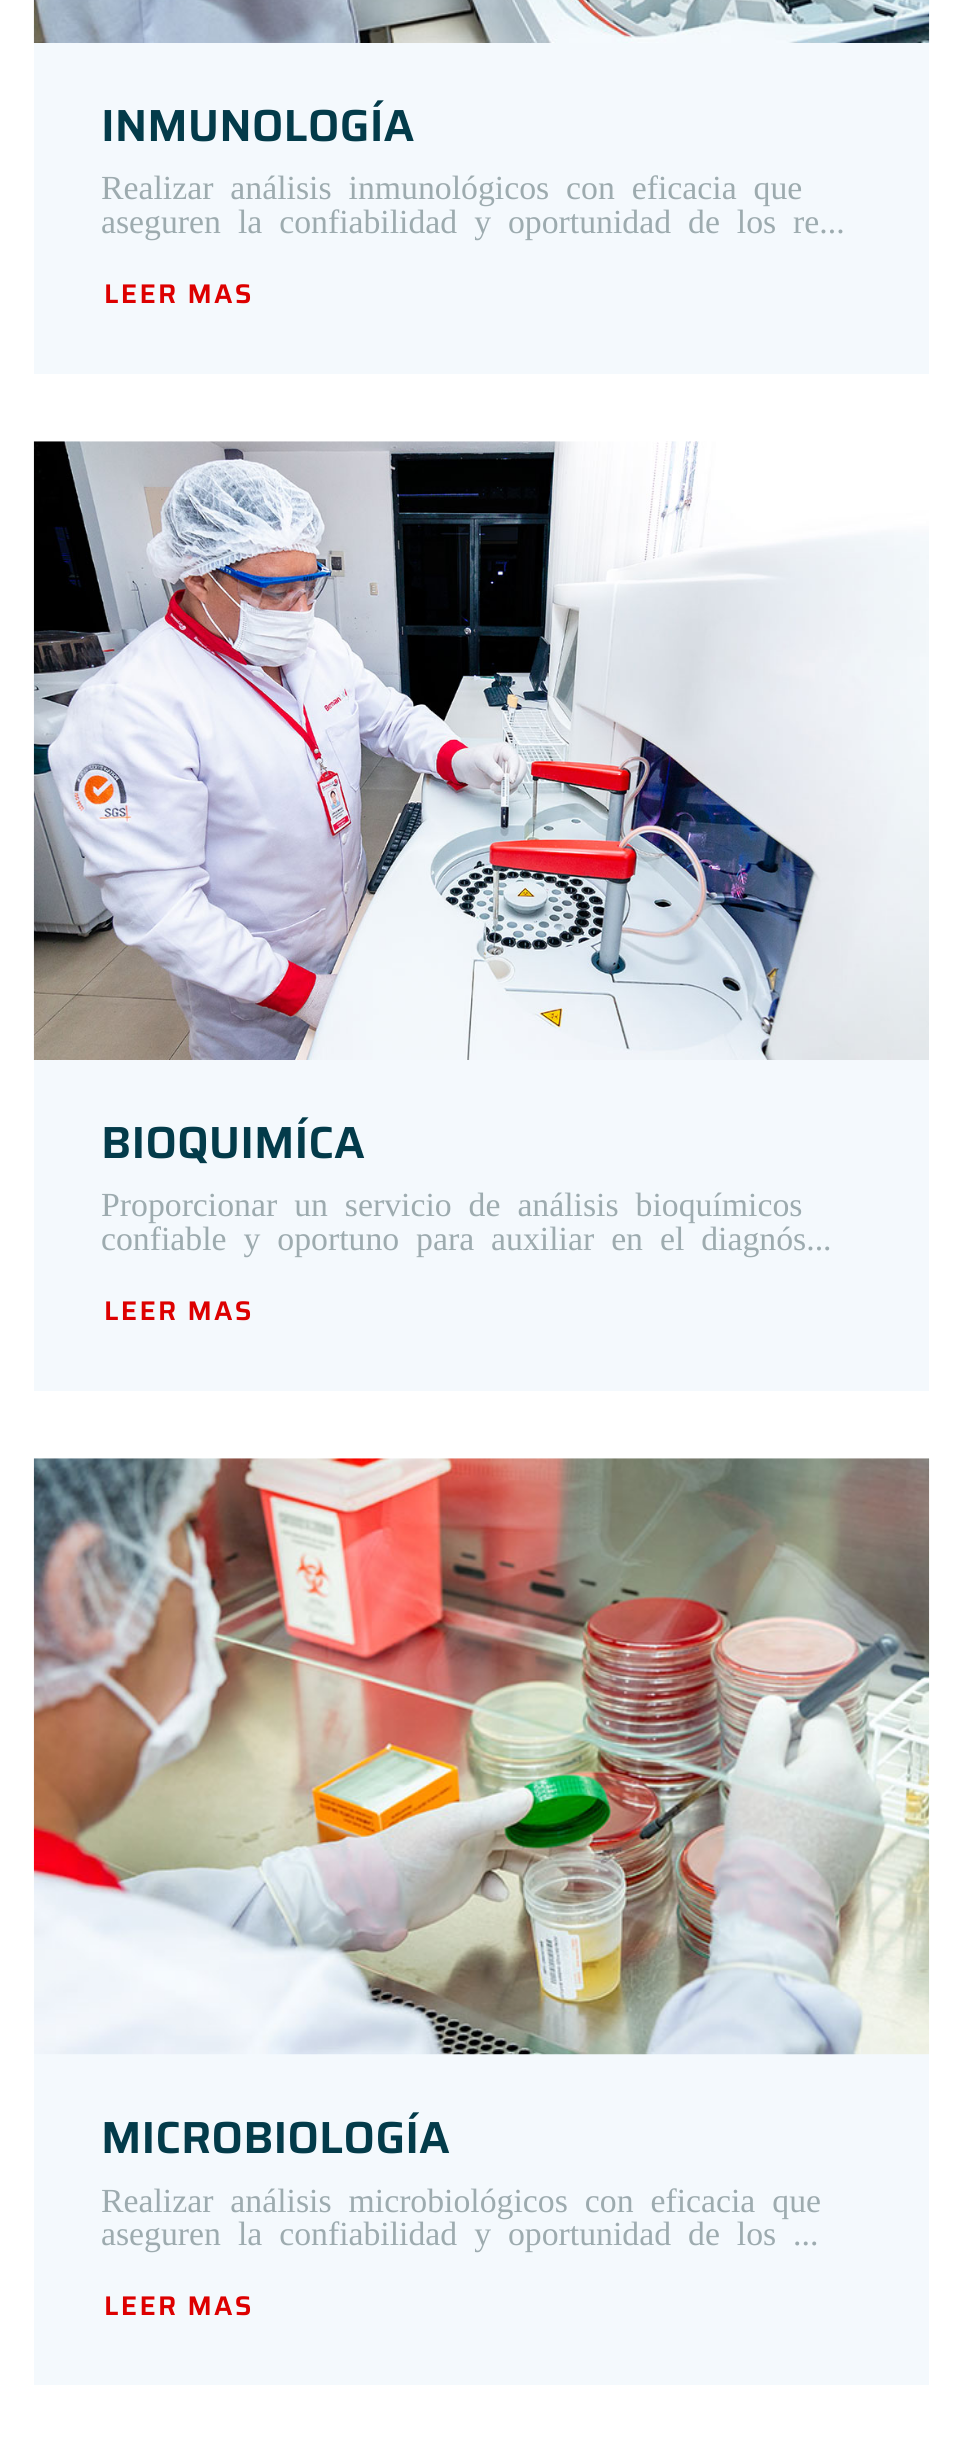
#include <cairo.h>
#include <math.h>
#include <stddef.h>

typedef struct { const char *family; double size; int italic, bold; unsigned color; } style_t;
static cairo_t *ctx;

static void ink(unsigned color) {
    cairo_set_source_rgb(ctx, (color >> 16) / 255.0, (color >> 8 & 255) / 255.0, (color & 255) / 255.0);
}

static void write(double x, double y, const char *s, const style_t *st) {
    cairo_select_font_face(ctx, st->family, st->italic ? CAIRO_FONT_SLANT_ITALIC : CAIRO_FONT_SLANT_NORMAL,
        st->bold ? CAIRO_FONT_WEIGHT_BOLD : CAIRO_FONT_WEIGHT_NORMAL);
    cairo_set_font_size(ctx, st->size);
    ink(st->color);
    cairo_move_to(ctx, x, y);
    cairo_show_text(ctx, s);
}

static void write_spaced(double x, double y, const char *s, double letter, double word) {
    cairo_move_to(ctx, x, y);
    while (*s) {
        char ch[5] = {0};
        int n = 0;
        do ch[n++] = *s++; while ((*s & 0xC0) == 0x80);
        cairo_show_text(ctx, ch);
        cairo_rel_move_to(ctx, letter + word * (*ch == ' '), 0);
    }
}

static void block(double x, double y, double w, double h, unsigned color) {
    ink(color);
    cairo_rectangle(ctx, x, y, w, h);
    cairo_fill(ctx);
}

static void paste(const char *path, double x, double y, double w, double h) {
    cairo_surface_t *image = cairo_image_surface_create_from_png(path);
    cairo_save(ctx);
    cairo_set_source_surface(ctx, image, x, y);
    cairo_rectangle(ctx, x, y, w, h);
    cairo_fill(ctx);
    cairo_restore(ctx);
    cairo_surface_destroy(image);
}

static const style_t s1 = {"Saira SemiBold", 45, 0, 0, 0x033b4a};

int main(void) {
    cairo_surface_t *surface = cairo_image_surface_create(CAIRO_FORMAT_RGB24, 962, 2462);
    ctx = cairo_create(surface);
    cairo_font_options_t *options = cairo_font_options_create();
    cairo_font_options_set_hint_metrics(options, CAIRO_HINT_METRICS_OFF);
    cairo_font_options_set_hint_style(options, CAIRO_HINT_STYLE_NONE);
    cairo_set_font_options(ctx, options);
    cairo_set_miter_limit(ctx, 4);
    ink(0xffffff);
    cairo_paint(ctx);
    paste("pic1.png", 33, 0, 897, 43);
    block(34, 43, 895, 331, 0xf4f9fd);
    write(101, 141, "INMUNOLOGÍA", &s1);
    cairo_select_font_face(ctx, "Liberation Serif", CAIRO_FONT_SLANT_NORMAL, CAIRO_FONT_WEIGHT_NORMAL);
    cairo_set_font_size(ctx, 33.75);
    ink(0x9dabaf);
    write_spaced(101, 199, "Realizar análisis inmunológicos con eficacia que", 0, 8.5);
    write_spaced(101, 233, "aseguren la confiabilidad y oportunidad de los re...", 0, 8.5);
    cairo_select_font_face(ctx, "Saira SemiBold", CAIRO_FONT_SLANT_NORMAL, CAIRO_FONT_WEIGHT_NORMAL);
    cairo_set_font_size(ctx, 27);
    ink(0xdd0000);
    write_spaced(104, 303, "LEER MAS", 2.25, 0);
    paste("pic2.png", 33, 441, 896, 619);
    block(34, 1060, 895, 331, 0xf4f9fd);
    write(101, 1158, "BIOQUIMÍCA", &s1);
    cairo_select_font_face(ctx, "Liberation Serif", CAIRO_FONT_SLANT_NORMAL, CAIRO_FONT_WEIGHT_NORMAL);
    cairo_set_font_size(ctx, 33.75);
    ink(0x9dabaf);
    write_spaced(101, 1216, "Proporcionar un servicio de análisis bioquímicos", 0, 8.5);
    write_spaced(101, 1250, "confiable y oportuno para auxiliar en el diagnós...", 0, 8.5);
    cairo_select_font_face(ctx, "Saira SemiBold", CAIRO_FONT_SLANT_NORMAL, CAIRO_FONT_WEIGHT_NORMAL);
    cairo_set_font_size(ctx, 27);
    ink(0xdd0000);
    write_spaced(104, 1320, "LEER MAS", 2.25, 0);
    block(34, 2054, 895, 331, 0xf4f9fd);
    paste("pic3.png", 33, 1458, 897, 597);
    write(101, 2153, "MICROBIOLOGÍA", &s1);
    cairo_select_font_face(ctx, "Liberation Serif", CAIRO_FONT_SLANT_NORMAL, CAIRO_FONT_WEIGHT_NORMAL);
    cairo_set_font_size(ctx, 33.75);
    ink(0x9dabaf);
    write_spaced(101, 2212, "Realizar análisis microbiológicos con eficacia que", 0, 8.5);
    write_spaced(101, 2245, "aseguren la confiabilidad y oportunidad de los ...", 0, 8.5);
    cairo_select_font_face(ctx, "Saira SemiBold", CAIRO_FONT_SLANT_NORMAL, CAIRO_FONT_WEIGHT_NORMAL);
    cairo_set_font_size(ctx, 27);
    ink(0xdd0000);
    write_spaced(104, 2315, "LEER MAS", 2.25, 0);
    cairo_surface_write_to_png(surface, "screenshot.png");
    cairo_font_options_destroy(options);
    cairo_destroy(ctx);
    cairo_surface_destroy(surface);
    return 0;
}
